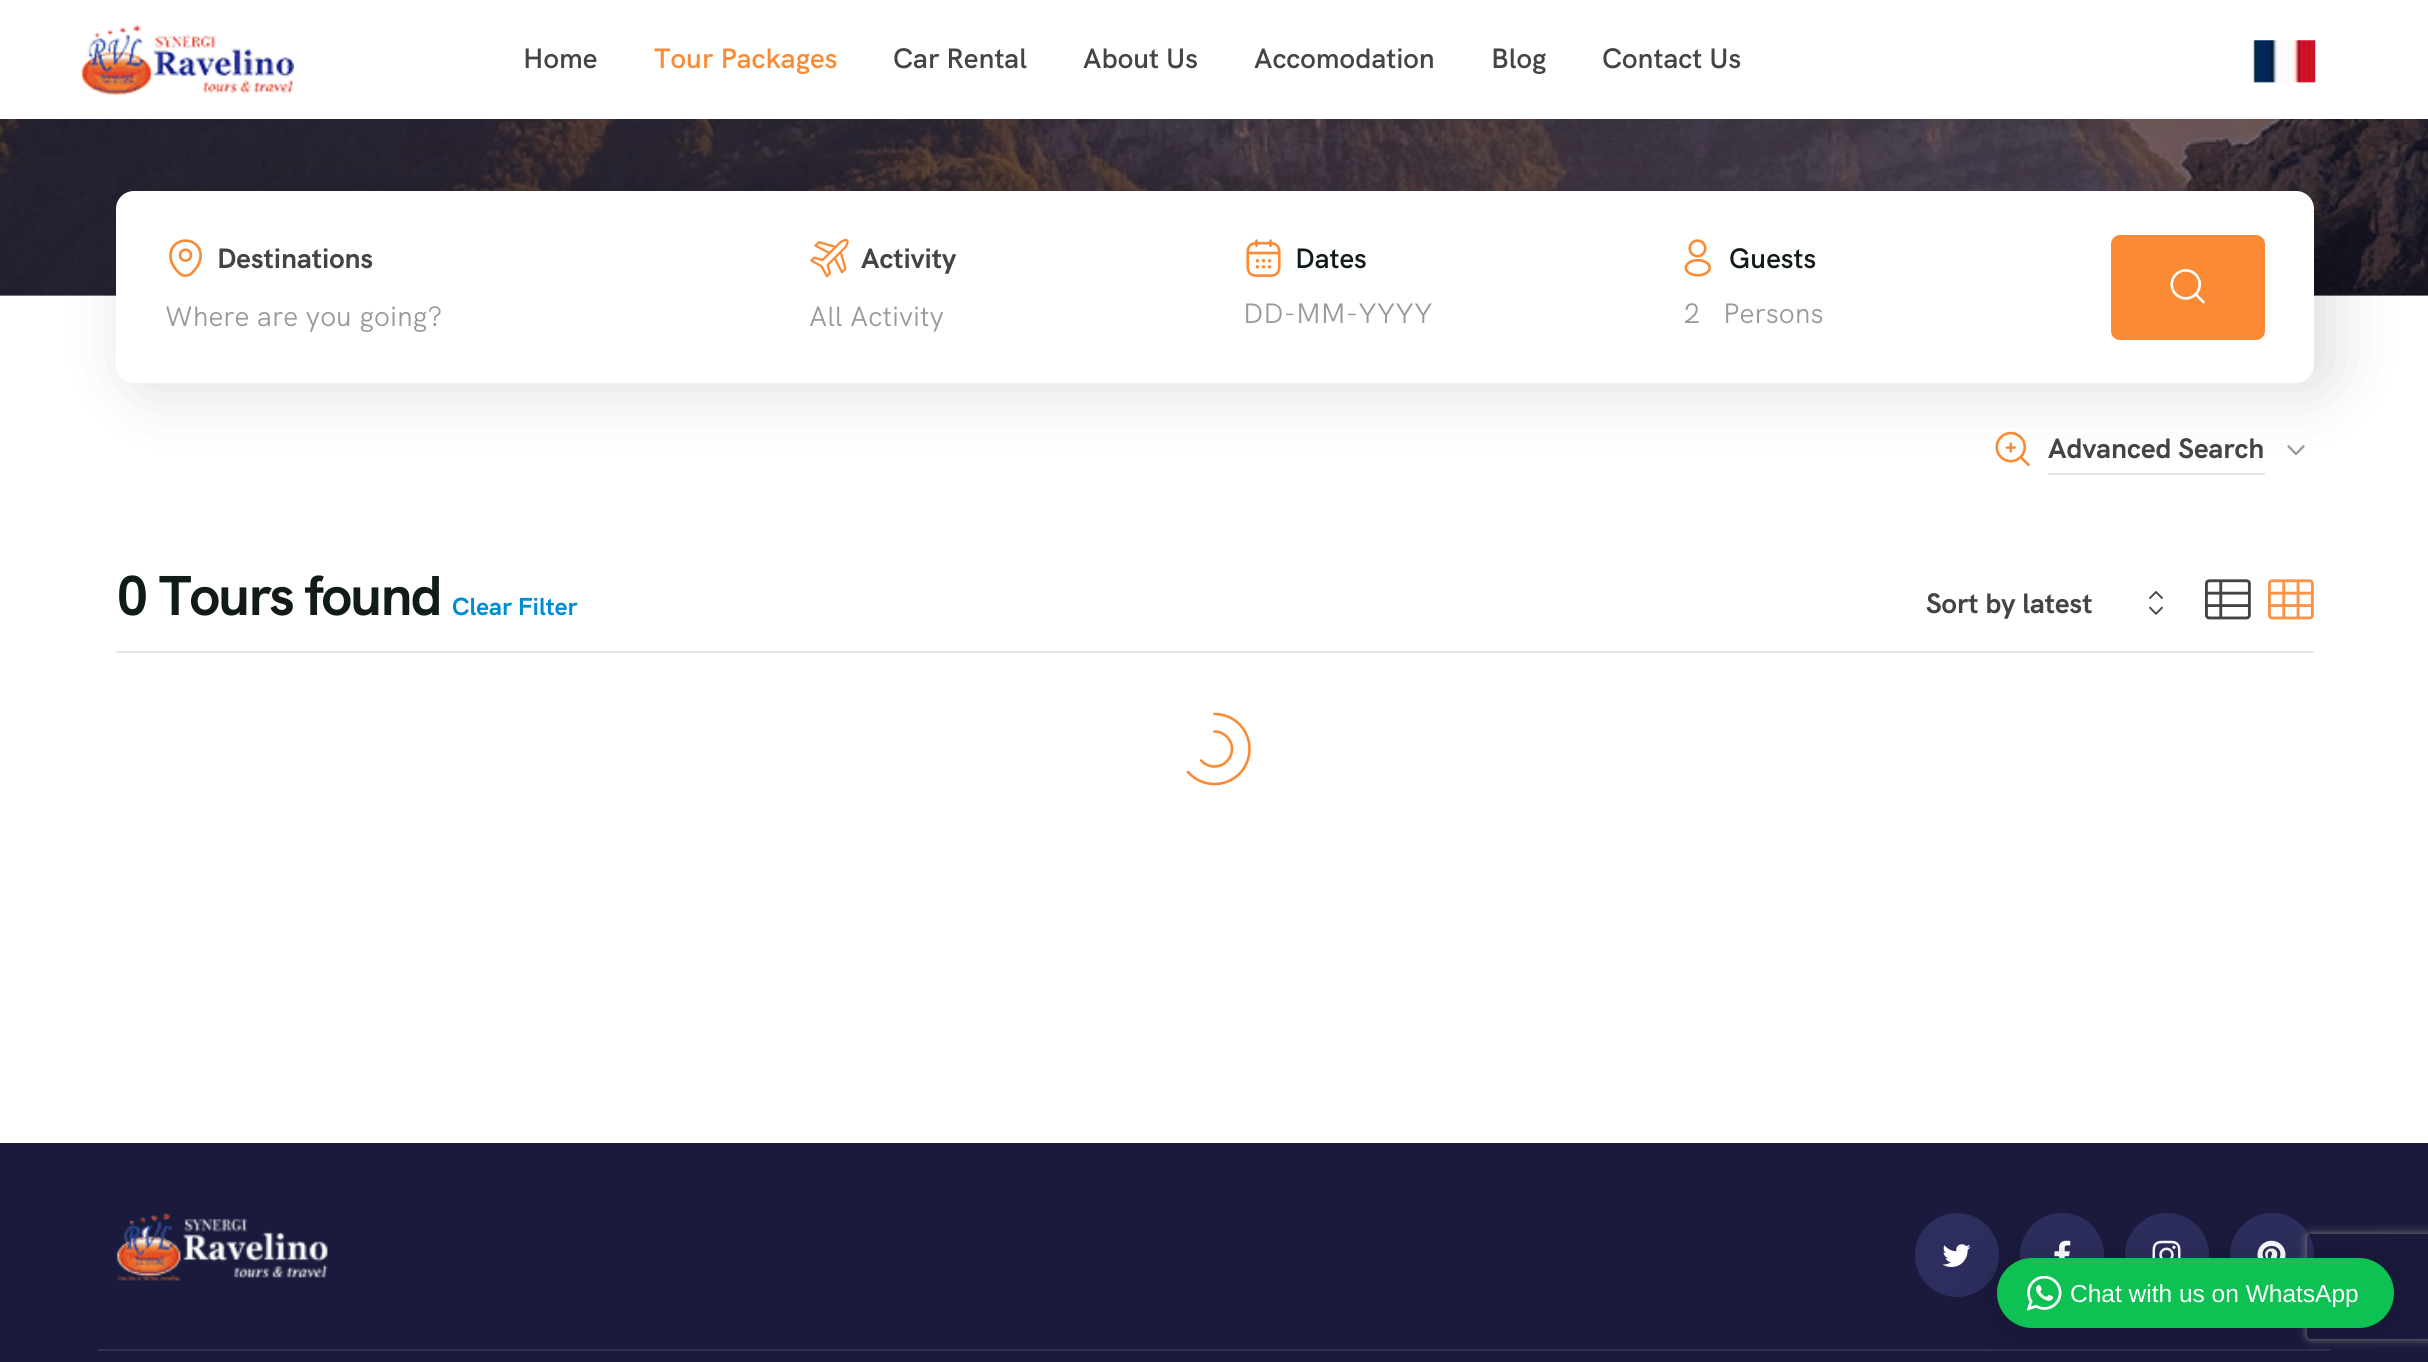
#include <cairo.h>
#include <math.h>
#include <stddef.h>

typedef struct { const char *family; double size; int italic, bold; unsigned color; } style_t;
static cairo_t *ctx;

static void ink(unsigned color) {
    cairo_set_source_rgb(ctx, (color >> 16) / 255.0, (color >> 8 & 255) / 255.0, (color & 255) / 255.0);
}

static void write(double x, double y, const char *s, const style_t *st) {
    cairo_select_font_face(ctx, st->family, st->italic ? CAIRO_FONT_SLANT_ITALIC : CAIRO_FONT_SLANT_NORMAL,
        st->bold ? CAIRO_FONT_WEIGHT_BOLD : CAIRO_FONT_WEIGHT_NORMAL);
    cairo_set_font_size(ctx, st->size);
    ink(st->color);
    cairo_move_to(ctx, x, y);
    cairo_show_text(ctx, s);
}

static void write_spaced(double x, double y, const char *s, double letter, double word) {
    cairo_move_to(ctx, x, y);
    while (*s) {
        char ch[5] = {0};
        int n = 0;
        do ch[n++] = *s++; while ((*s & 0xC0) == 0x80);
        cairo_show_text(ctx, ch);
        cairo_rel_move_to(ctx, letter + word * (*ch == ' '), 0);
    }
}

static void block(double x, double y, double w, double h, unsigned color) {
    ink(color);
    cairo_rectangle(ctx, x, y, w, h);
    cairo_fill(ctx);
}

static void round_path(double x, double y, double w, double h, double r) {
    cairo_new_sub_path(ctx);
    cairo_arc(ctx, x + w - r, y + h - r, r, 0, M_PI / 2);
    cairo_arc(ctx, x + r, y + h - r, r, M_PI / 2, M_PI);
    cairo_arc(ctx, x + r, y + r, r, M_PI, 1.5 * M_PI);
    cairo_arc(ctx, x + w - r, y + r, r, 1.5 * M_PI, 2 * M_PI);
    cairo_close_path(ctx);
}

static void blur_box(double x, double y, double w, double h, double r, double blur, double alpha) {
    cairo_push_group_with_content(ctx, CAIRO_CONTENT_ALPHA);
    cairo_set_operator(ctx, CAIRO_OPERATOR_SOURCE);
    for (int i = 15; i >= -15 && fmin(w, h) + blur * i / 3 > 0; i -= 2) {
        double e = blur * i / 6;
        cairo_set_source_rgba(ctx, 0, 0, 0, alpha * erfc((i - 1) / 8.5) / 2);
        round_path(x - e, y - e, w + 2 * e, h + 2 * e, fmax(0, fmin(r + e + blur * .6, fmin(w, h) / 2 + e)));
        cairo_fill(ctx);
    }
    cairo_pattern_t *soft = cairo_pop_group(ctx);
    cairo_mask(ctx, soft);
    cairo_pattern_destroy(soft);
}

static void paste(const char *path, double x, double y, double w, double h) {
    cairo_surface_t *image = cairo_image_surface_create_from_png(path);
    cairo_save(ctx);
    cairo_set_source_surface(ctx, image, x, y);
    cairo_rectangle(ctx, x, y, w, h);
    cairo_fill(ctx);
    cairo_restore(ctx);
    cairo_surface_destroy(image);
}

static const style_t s1 = {"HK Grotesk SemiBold", 28, 0, 0, 0x444444};
static const style_t s2 = {"HK Grotesk SemiBold", 28, 0, 0, 0xfa8a34};
static const style_t s3 = {"HK Grotesk", 28, 0, 1, 0x444444};
static const style_t s4 = {"HK Grotesk", 28, 0, 0, 0x999999};
static const style_t s5 = {"HK Grotesk SemiBold", 28, 0, 0, 0x111b19};
static const style_t s6 = {"HK Grotesk", 24.5, 0, 1, 0x008dd0};
static const style_t s7 = {"Liberation Sans", 24.5, 0, 0, 0xffffff};

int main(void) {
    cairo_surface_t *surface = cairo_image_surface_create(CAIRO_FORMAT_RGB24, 2428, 1362);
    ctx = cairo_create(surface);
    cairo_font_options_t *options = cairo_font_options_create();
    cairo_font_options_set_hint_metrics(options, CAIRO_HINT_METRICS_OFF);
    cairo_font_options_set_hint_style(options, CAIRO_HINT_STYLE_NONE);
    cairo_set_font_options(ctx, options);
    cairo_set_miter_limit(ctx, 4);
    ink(0xffffff);
    cairo_paint(ctx);
    block(0, 295, 2428, 1, 0x8d8d9e);
    paste("pic3.png", 0, 119, 2428, 177);
    ink(0x000000);
    blur_box(133, 194, 2198, 193, 18, 35, 0.14);
    ink(0xffffff);
    round_path(116, 191, 2198, 192, 18);
    cairo_fill(ctx);
    ink(0x000000);
    blur_box(0, 7, 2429, 119, 0, 35, 0.08);
    block(0, 0, 2428, 119, 0xffffff);
    paste("pic1.png", 80, 24, 214, 71);
    write(523, 68, "Home", &s1);
    write(654, 68, "Tour Packages", &s2);
    write(893, 68, "Car Rental", &s1);
    write(1083, 68, "About Us", &s1);
    write(1254, 68, "Accomodation", &s1);
    write(1491, 68, "Blog", &s1);
    write(1602, 68, "Contact Us", &s1);
    paste("pic2.png", 2253, 40, 63, 43);
    paste("pic4.png", 169, 239, 33, 38);
    write(217, 268, "Destinations", &s3);
    write(165, 326, "Where are you going?", &s4);
    paste("pic5.png", 810, 238, 39, 40);
    write(861, 268, "Activity", &s3);
    write(809, 326, "All Activity", &s4);
    paste("pic6.png", 1246, 239, 35, 38);
    write(1295, 268, "Dates", &s5);
    write(1243, 323, "DD-MM-YYYY", &s4);
    paste("pic7.png", 1684, 239, 27, 38);
    write(1729, 268, "Guests", &s5);
    write(1684, 323, "2", &s4);
    write(1723, 323, "Persons", &s4);
    ink(0xfa8a34);
    round_path(2111, 235, 154, 105, 9);
    cairo_fill(ctx);
    paste("pic8.png", 2170, 269, 35, 35);
    paste("pic9.png", 1995, 431, 35, 36);
    block(2048, 473, 217, 2, 0xe6e6e6);
    write(2048, 458, "Advanced Search", &s3);
    paste("pic10.png", 2287, 445, 18, 11);
    block(116, 651, 2198, 2, 0xe6e6e6);
    cairo_set_font_size(ctx, 56);
    ink(0x111b19);
    write_spaced(116, 615, "0 Tours found", -1.75, 0);
    write(452, 615, "Clear Filter", &s6);
    write(1926, 613, "Sort by latest", &s3);
    paste("pic11.png", 2149, 591, 14, 8);
    paste("pic12.png", 2149, 606, 14, 9);
    paste("pic13.png", 2205, 579, 46, 41);
    paste("pic14.png", 2268, 579, 46, 41);
    cairo_new_path(ctx);
    cairo_move_to(ctx, 1214.5, 731.5);
    cairo_curve_to(ctx, 1224, 731.5, 1232, 739.5, 1232, 749);
    cairo_curve_to(ctx, 1232, 758.5, 1224, 766.5, 1214.5, 766.5);
    cairo_curve_to(ctx, 1209, 766.5, 1204.5, 764, 1201, 760.5);
    ink(0xfa8a34);
    cairo_set_line_width(ctx, 2.6);
    cairo_set_line_cap(ctx, CAIRO_LINE_CAP_ROUND);
    cairo_stroke(ctx);
    cairo_new_path(ctx);
    cairo_move_to(ctx, 1214.5, 714);
    cairo_curve_to(ctx, 1234, 714, 1249.5, 729.5, 1249.5, 749);
    cairo_curve_to(ctx, 1249.5, 768.5, 1234, 784, 1214.5, 784);
    cairo_curve_to(ctx, 1204, 784, 1194.5, 779.5, 1188, 772);
    cairo_stroke(ctx);
    block(0, 1143, 2428, 219, 0x1a1a3d);
    block(98, 1349, 2233, 2, 0x313150);
    paste("pic15.png", 116, 1213, 212, 68);
    ink(0x2e2e5e);
    cairo_arc(ctx, 1957, 1255, 42, 0, 2 * M_PI);
    cairo_fill(ctx);
    paste("pic16.png", 1942, 1244, 29, 23);
    cairo_arc(ctx, 2062, 1255, 42, 0, 2 * M_PI);
    cairo_fill(ctx);
    paste("pic17.png", 2054, 1240, 17, 18);
    cairo_arc(ctx, 2167, 1255, 42, 0, 2 * M_PI);
    cairo_fill(ctx);
    paste("pic18.png", 2152, 1240, 29, 18);
    cairo_arc(ctx, 2272, 1255, 42, 0, 2 * M_PI);
    cairo_fill(ctx);
    paste("pic19.png", 2257, 1240, 29, 18);
    ink(0x000000);
    blur_box(1997, 1262, 397, 70, 35, 28, 0.16);
    cairo_save(ctx);
    cairo_set_fill_rule(ctx, CAIRO_FILL_RULE_EVEN_ODD);
    cairo_new_path(ctx);
    cairo_move_to(ctx, 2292, 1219);
    cairo_line_to(ctx, 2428, 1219);
    cairo_line_to(ctx, 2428, 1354);
    cairo_line_to(ctx, 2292, 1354);
    cairo_close_path(ctx);
    cairo_move_to(ctx, 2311, 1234);
    cairo_line_to(ctx, 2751, 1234);
    cairo_curve_to(ctx, 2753, 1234, 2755, 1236, 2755, 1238);
    cairo_line_to(ctx, 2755, 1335);
    cairo_curve_to(ctx, 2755, 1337, 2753, 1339, 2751, 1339);
    cairo_line_to(ctx, 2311, 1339);
    cairo_curve_to(ctx, 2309, 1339, 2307, 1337, 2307, 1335);
    cairo_line_to(ctx, 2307, 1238);
    cairo_curve_to(ctx, 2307, 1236, 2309, 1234, 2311, 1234);
    cairo_close_path(ctx);
    cairo_clip(ctx);
    ink(0x808080);
    blur_box(2307, 1234, 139, 105, 4, 4.5, 1);
    cairo_restore(ctx);
    ink(0x0dc152);
    round_path(1997, 1258, 397, 70, 35);
    cairo_fill(ctx);
    paste("pic20.png", 2027, 1276, 35, 35);
    write(2070, 1302, "Chat with us on WhatsApp", &s7);
    cairo_surface_write_to_png(surface, "screenshot.png");
    cairo_font_options_destroy(options);
    cairo_destroy(ctx);
    cairo_surface_destroy(surface);
    return 0;
}
